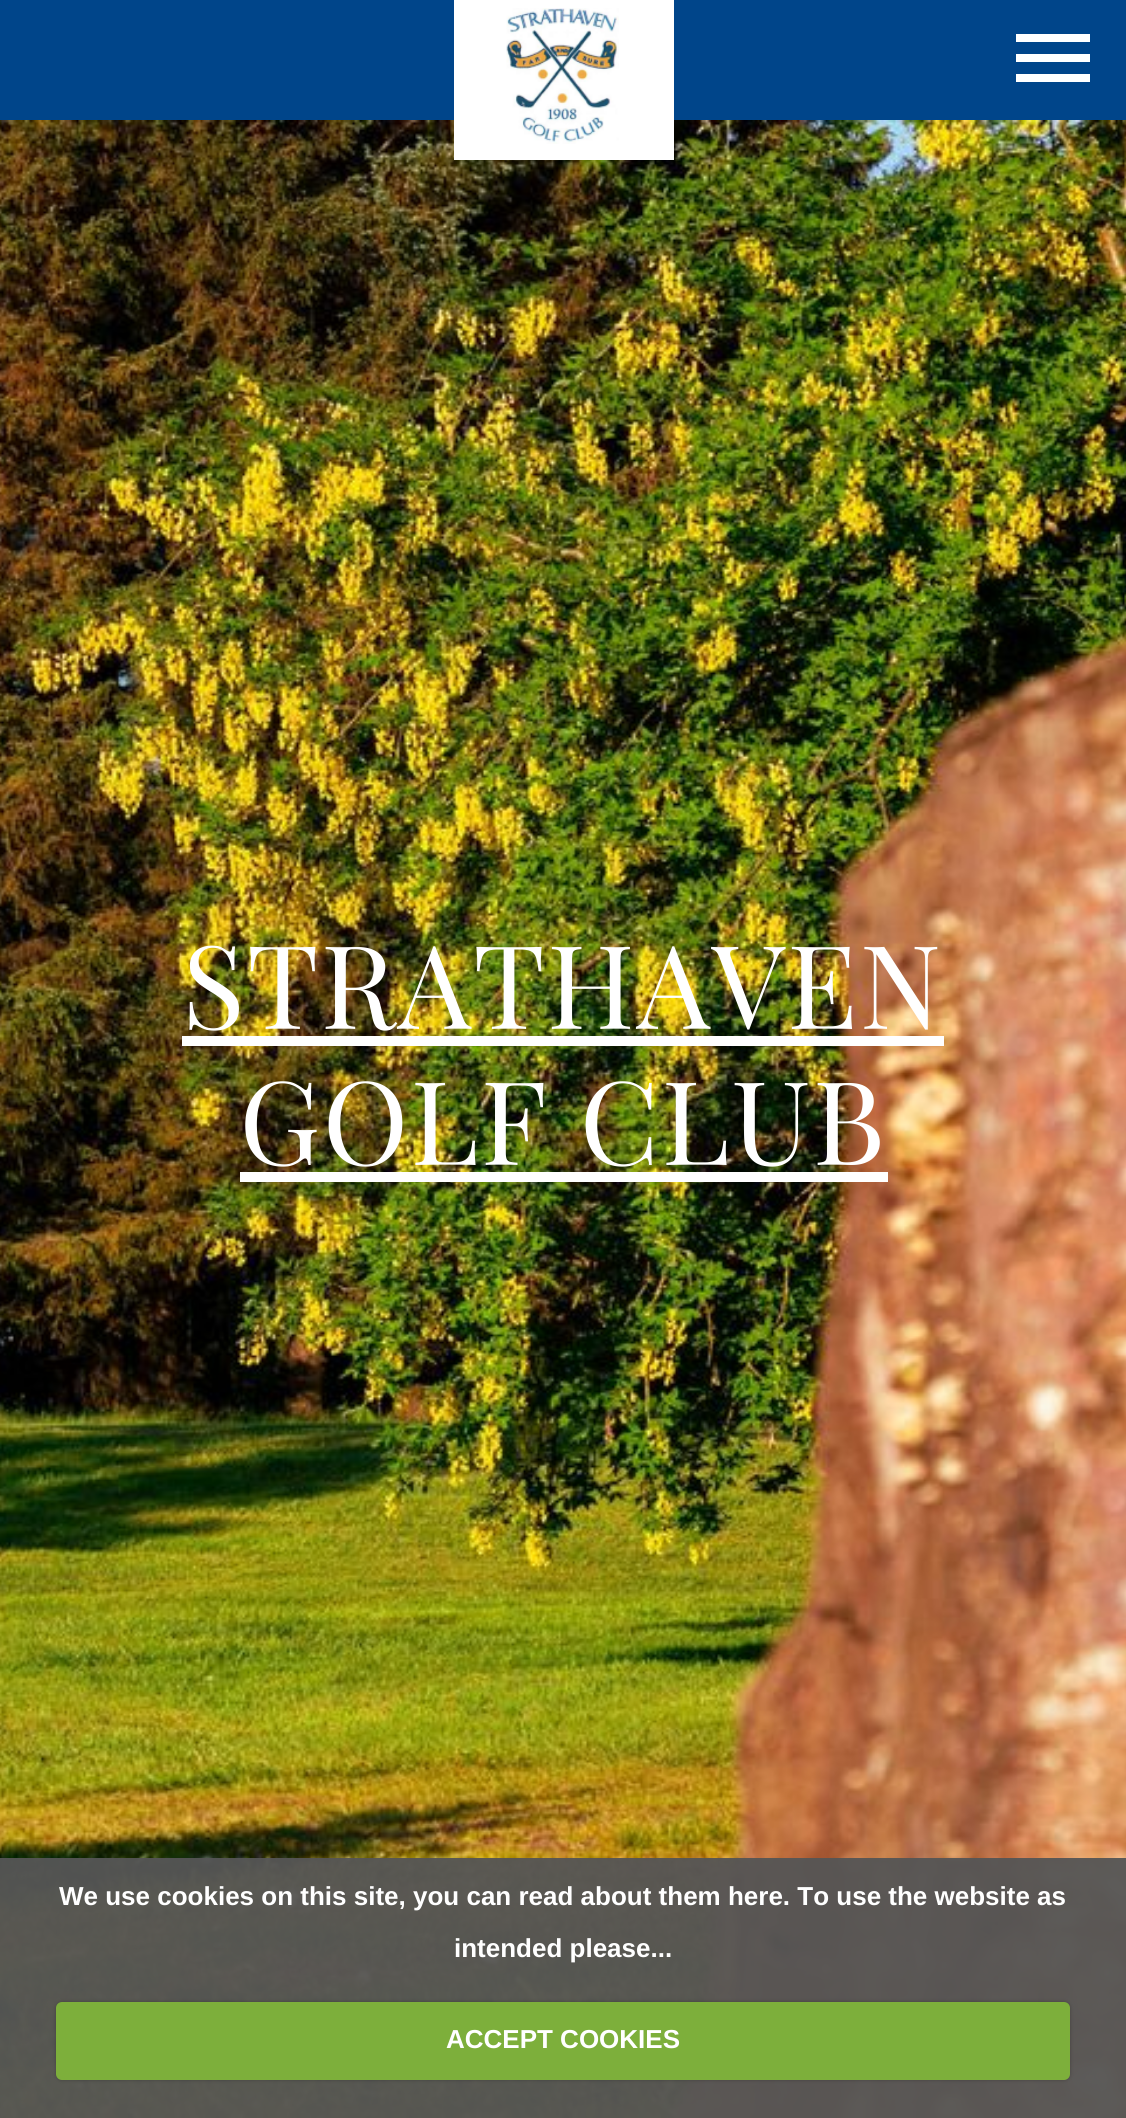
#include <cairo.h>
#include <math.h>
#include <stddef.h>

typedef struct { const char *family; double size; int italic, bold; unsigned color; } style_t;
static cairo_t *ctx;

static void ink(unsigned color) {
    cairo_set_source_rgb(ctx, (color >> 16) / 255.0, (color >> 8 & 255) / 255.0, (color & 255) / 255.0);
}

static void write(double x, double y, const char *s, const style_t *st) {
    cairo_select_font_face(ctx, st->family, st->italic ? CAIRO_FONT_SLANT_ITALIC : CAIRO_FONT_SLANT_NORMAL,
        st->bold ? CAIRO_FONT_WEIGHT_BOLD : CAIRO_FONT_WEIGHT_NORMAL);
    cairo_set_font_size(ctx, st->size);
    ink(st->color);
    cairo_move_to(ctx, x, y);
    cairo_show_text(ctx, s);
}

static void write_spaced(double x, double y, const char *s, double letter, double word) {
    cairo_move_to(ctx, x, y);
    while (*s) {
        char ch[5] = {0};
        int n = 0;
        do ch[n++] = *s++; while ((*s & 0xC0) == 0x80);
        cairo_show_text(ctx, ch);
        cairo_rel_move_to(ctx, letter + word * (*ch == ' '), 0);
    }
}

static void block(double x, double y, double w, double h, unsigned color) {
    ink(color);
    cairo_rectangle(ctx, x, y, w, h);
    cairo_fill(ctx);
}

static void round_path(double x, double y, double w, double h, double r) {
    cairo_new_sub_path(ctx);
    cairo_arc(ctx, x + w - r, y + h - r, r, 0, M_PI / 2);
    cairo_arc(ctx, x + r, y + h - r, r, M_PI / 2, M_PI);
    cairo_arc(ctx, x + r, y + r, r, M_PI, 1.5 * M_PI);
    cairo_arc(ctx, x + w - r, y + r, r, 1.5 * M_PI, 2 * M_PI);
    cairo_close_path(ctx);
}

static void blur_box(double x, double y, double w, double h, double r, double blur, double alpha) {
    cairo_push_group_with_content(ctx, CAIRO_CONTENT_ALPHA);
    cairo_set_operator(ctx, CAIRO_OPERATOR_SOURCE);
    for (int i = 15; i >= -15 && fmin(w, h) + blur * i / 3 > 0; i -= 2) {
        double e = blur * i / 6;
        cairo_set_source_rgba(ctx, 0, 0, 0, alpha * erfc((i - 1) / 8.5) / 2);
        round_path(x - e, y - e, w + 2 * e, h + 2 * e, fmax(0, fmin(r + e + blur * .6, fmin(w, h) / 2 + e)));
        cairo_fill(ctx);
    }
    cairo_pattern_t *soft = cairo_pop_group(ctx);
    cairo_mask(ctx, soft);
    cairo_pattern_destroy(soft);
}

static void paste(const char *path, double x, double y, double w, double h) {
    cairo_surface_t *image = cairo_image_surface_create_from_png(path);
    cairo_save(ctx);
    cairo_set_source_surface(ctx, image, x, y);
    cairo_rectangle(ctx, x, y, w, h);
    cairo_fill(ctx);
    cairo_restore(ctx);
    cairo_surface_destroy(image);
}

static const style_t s1 = {"Liberation Sans", 26, 0, 1, 0xffffff};

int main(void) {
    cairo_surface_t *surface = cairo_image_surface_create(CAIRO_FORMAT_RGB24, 1126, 2118);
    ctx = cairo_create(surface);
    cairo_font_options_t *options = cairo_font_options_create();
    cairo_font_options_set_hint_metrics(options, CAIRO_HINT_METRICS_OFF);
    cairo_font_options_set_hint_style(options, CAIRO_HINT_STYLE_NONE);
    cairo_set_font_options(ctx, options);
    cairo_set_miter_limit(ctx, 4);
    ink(0x00458a);
    cairo_paint(ctx);
    paste("pic2.png", 0, 120, 1126, 1998);
    block(454, 0, 220, 160, 0xffffff);
    paste("pic1.png", 506, 8, 113, 136);
    block(1016, 34, 74, 8, 0xffffff);
    block(1016, 54, 74, 8, 0xffffff);
    block(1016, 74, 74, 8, 0xffffff);
    cairo_select_font_face(ctx, "Playfair Display", CAIRO_FONT_SLANT_NORMAL, CAIRO_FONT_WEIGHT_NORMAL);
    cairo_set_font_size(ctx, 116);
    write_spaced(182, 1029, "STRATHAVEN", 2, 0);
    block(182, 1036, 762, 10, 0xffffff);
    write_spaced(239, 1165, "GOLF CLUB", 2, 0);
    block(240, 1172, 648, 10, 0xffffff);
    cairo_set_source_rgba(ctx, 0.337, 0.337, 0.337, 0.95);
    cairo_rectangle(ctx, 0, 1858, 1126, 260);
    cairo_fill(ctx);
    write(59, 1905, "We use cookies on this site, you can read about them here. To use the website as", &s1);
    write(454, 1957, "intended please...", &s1);
    ink(0x000000);
    blur_box(56, 2002, 1014, 78, 6, 2, 0.25);
    ink(0x7daf3b);
    round_path(56, 2002, 1014, 78, 6);
    cairo_fill(ctx);
    write(446, 2048, "ACCEPT COOKIES", &s1);
    cairo_surface_write_to_png(surface, "screenshot.png");
    cairo_font_options_destroy(options);
    cairo_destroy(ctx);
    cairo_surface_destroy(surface);
    return 0;
}
